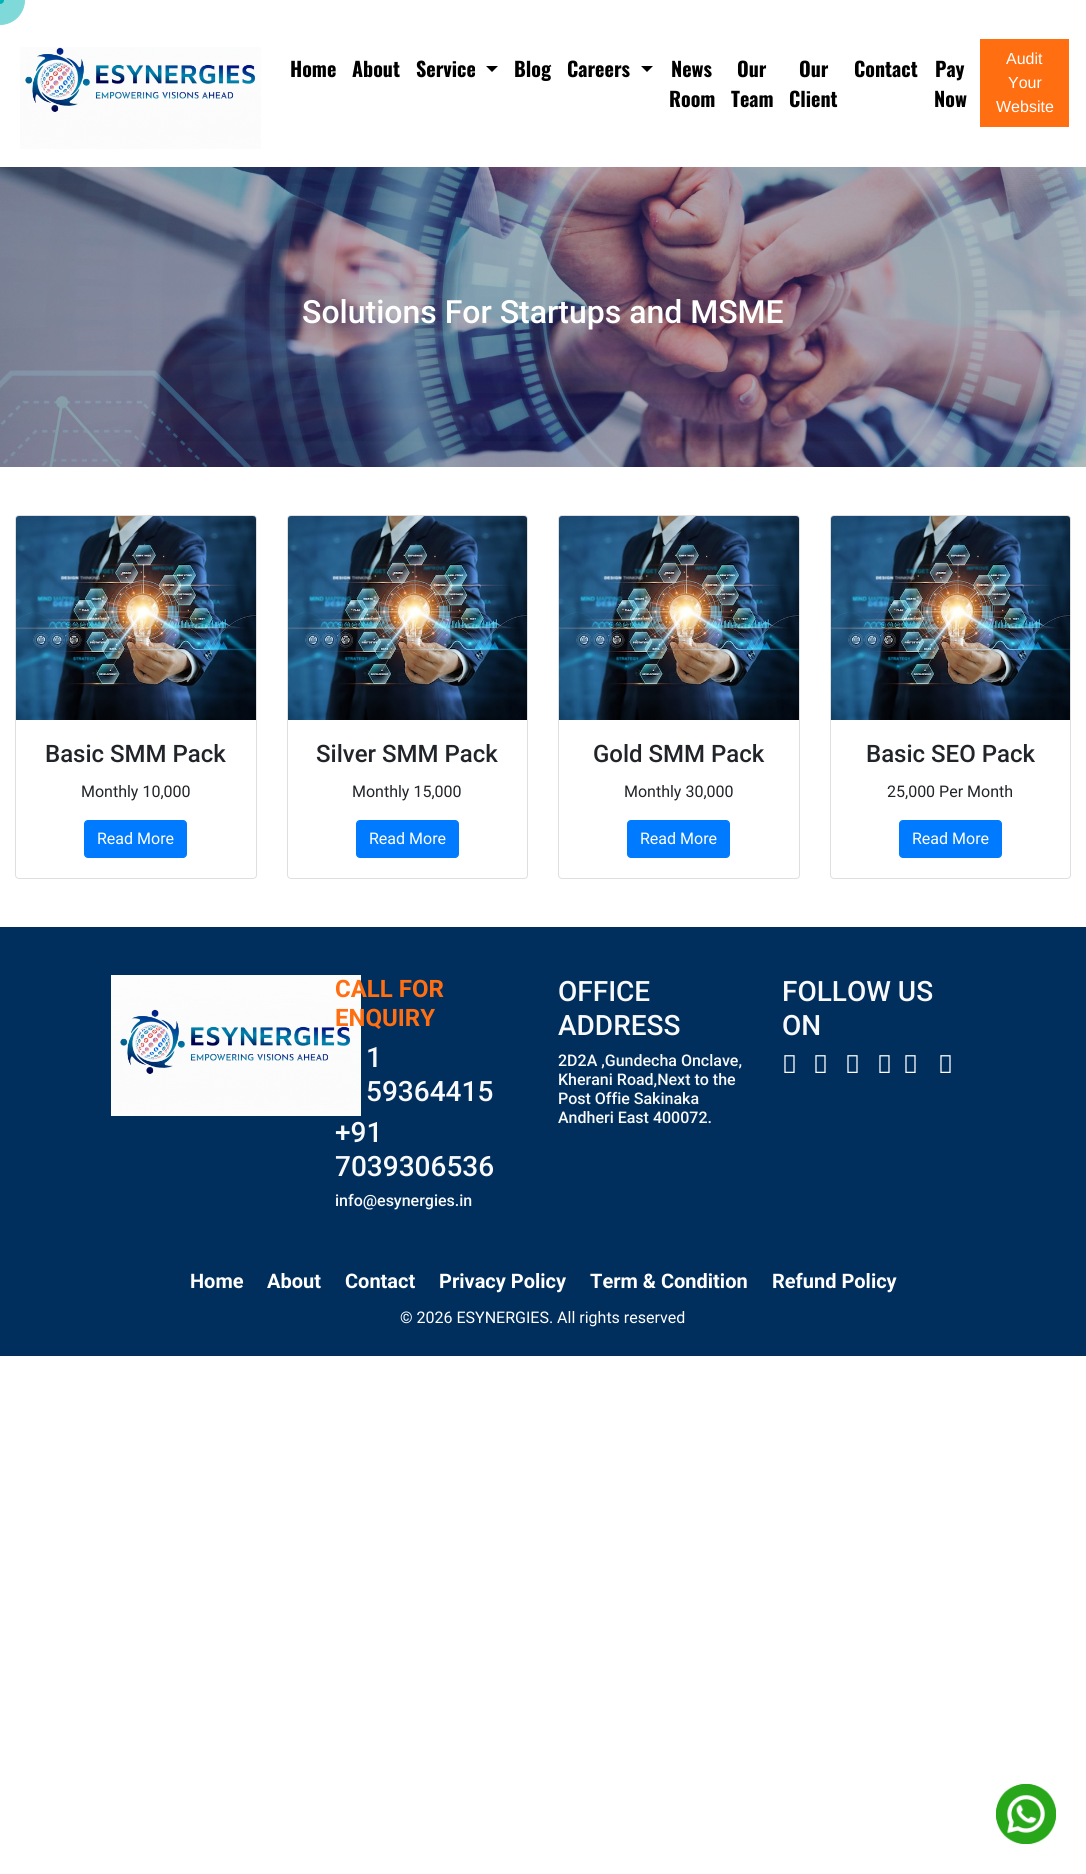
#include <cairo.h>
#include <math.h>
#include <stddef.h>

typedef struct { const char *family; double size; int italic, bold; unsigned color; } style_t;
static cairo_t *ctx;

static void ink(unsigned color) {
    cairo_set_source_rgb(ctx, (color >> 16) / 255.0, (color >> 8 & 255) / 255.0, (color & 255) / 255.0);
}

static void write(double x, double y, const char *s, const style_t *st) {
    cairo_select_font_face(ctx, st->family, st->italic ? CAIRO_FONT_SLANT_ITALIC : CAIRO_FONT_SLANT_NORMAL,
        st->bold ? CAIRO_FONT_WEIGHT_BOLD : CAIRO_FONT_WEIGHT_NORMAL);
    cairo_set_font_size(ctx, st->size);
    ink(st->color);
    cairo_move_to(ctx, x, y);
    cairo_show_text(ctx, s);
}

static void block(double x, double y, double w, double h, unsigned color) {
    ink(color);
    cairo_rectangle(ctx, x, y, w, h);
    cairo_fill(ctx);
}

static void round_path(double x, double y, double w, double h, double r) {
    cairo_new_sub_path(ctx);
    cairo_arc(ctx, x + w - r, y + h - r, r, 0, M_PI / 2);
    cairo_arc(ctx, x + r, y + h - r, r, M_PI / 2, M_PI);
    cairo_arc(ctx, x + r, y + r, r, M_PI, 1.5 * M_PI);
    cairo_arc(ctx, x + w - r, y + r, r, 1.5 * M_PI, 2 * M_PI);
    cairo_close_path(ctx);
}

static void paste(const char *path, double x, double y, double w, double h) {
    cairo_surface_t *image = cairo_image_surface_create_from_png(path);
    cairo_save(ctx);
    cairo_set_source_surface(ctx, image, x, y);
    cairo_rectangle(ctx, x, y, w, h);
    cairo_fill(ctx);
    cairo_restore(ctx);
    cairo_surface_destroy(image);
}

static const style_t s1 = {"Oswald", 20, 0, 1, 0x000000};
static const style_t s2 = {"Liberation Sans", 16, 0, 0, 0xffffff};
static const style_t s3 = {"Roboto Medium", 32, 0, 0, 0xffffff};
static const style_t s4 = {"Roboto Medium", 24, 0, 0, 0x212529};
static const style_t s5 = {"Roboto", 16, 0, 0, 0x212529};
static const style_t s6 = {"Roboto", 16, 0, 0, 0xffffff};
static const style_t s7 = {"Roboto", 24, 0, 1, 0xff6f12};
static const style_t s8 = {"Roboto Medium", 28, 0, 0, 0xf8f9fa};
static const style_t s9 = {"Roboto Medium", 16, 0, 0, 0xf8f9fa};
static const style_t s10 = {"Roboto", 20, 0, 1, 0xffffff};

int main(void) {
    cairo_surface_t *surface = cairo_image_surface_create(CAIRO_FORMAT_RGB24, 1086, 1874);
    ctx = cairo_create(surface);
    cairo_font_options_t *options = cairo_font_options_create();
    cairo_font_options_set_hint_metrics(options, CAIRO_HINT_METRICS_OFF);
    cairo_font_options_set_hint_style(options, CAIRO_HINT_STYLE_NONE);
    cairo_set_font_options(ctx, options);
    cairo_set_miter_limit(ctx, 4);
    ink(0xffffff);
    cairo_paint(ctx);
    ink(0x80d9d9);
    cairo_arc(ctx, 0, 0, 24.5, 0, 2 * M_PI);
    cairo_fill_preserve(ctx);
    cairo_set_line_width(ctx, 1);
    cairo_stroke(ctx);
    ink(0x00b3b3);
    cairo_arc(ctx, 0, 0, 4, 0, 2 * M_PI);
    cairo_fill(ctx);
    paste("pic1.png", 20, 47, 241, 102);
    write(290, 77, "Home", &s1);
    write(352, 77, "About", &s1);
    write(416, 77, "Service", &s1);
    cairo_new_path(ctx);
    cairo_move_to(ctx, 486, 66);
    cairo_line_to(ctx, 498, 66);
    cairo_line_to(ctx, 492, 72);
    cairo_close_path(ctx);
    cairo_fill(ctx);
    write(514, 77, "Blog", &s1);
    write(567, 77, "Careers", &s1);
    cairo_new_path(ctx);
    cairo_move_to(ctx, 641, 66);
    cairo_line_to(ctx, 653, 66);
    cairo_line_to(ctx, 647, 72);
    cairo_close_path(ctx);
    cairo_fill(ctx);
    write(671, 77, "News", &s1);
    write(669, 107, "Room", &s1);
    write(737, 77, "Our", &s1);
    write(731, 107, "Team", &s1);
    write(799, 77, "Our", &s1);
    write(789, 107, "Client", &s1);
    write(854, 77, "Contact", &s1);
    write(935, 77, "Pay", &s1);
    write(934, 107, "Now", &s1);
    block(980, 39, 89, 88, 0xff6f12);
    write(1006, 64, "Audit", &s2);
    write(1008, 88, "Your", &s2);
    write(996, 112, "Website", &s2);
    paste("pic2.png", 0, 167, 1086, 300);
    write(302, 323, "Solutions For Startups and MSME", &s3);
    round_path(15.5, 515.5, 241, 363, 3.5);
    ink(0xdfdfdf);
    cairo_stroke(ctx);
    paste("pic3.png", 16, 516, 240, 204);
    write(45, 762, "Basic SMM Pack", &s4);
    write(81, 797, "Monthly 10,000", &s5);
    ink(0x007bff);
    round_path(84.5, 820.5, 102, 37, 3.5);
    cairo_fill_preserve(ctx);
    cairo_stroke(ctx);
    write(97, 844, "Read More", &s6);
    round_path(287.5, 515.5, 240, 363, 3.5);
    ink(0xdfdfdf);
    cairo_stroke(ctx);
    paste("pic4.png", 288, 516, 239, 204);
    write(316, 762, "Silver SMM Pack", &s4);
    write(352, 797, "Monthly 15,000", &s5);
    ink(0x007bff);
    round_path(356.5, 820.5, 102, 37, 3.5);
    cairo_fill_preserve(ctx);
    cairo_stroke(ctx);
    write(369, 844, "Read More", &s6);
    round_path(558.5, 515.5, 241, 363, 3.5);
    ink(0xdfdfdf);
    cairo_stroke(ctx);
    paste("pic5.png", 559, 516, 240, 204);
    write(593, 762, "Gold SMM Pack", &s4);
    write(624, 797, "Monthly 30,000", &s5);
    ink(0x007bff);
    round_path(627.5, 820.5, 102, 37, 3.5);
    cairo_fill_preserve(ctx);
    cairo_stroke(ctx);
    write(640, 844, "Read More", &s6);
    round_path(830.5, 515.5, 240, 363, 3.5);
    ink(0xdfdfdf);
    cairo_stroke(ctx);
    paste("pic4.png", 831, 516, 239, 204);
    write(866, 762, "Basic SEO Pack", &s4);
    write(887, 797, "25,000 Per Month", &s5);
    ink(0x007bff);
    round_path(899.5, 820.5, 102, 37, 3.5);
    cairo_fill_preserve(ctx);
    cairo_stroke(ctx);
    write(912, 844, "Read More", &s6);
    block(0, 927, 1086, 429, 0x002e5d);
    paste("pic6.png", 111, 975, 250, 141);
    write(335, 997, "CALL FOR", &s7);
    write(335, 1026, "ENQUIRY", &s7);
    write(366, 1067, "1", &s8);
    write(366, 1101, "59364415", &s8);
    write(335, 1142, "+91", &s8);
    write(335, 1176, "7039306536", &s8);
    write(335, 1206, "info@esynergies.in", &s9);
    write(558, 1001, "OFFICE", &s8);
    write(558, 1035, "ADDRESS", &s8);
    write(558, 1066, "2D2A ,Gundecha Onclave,", &s9);
    write(558, 1085, "Kherani Road,Next to the", &s9);
    write(558, 1104, "Post Offie Sakinaka", &s9);
    write(558, 1123, "Andheri East 400072.", &s9);
    write(782, 1001, "FOLLOW US", &s8);
    write(782, 1035, "ON", &s8);
    paste("pic7.png", 784, 1055, 11, 18);
    paste("pic7.png", 815, 1055, 11, 18);
    paste("pic7.png", 847, 1055, 11, 18);
    paste("pic7.png", 879, 1055, 11, 18);
    paste("pic7.png", 905, 1055, 11, 18);
    paste("pic7.png", 940, 1055, 11, 18);
    write(190, 1288, "Home", &s10);
    write(267, 1288, "About", &s10);
    write(345, 1288, "Contact", &s10);
    write(439, 1288, "Privacy Policy", &s10);
    write(590, 1288, "Term & Condition", &s10);
    write(772, 1288, "Refund Policy", &s10);
    write(400, 1323, "© 2026 ESYNERGIES. All rights reserved", &s6);
    paste("pic8.png", 996, 1784, 60, 60);
    paste("pic9.png", 996, 1784, 60, 60);
    cairo_surface_write_to_png(surface, "screenshot.png");
    cairo_font_options_destroy(options);
    cairo_destroy(ctx);
    cairo_surface_destroy(surface);
    return 0;
}
